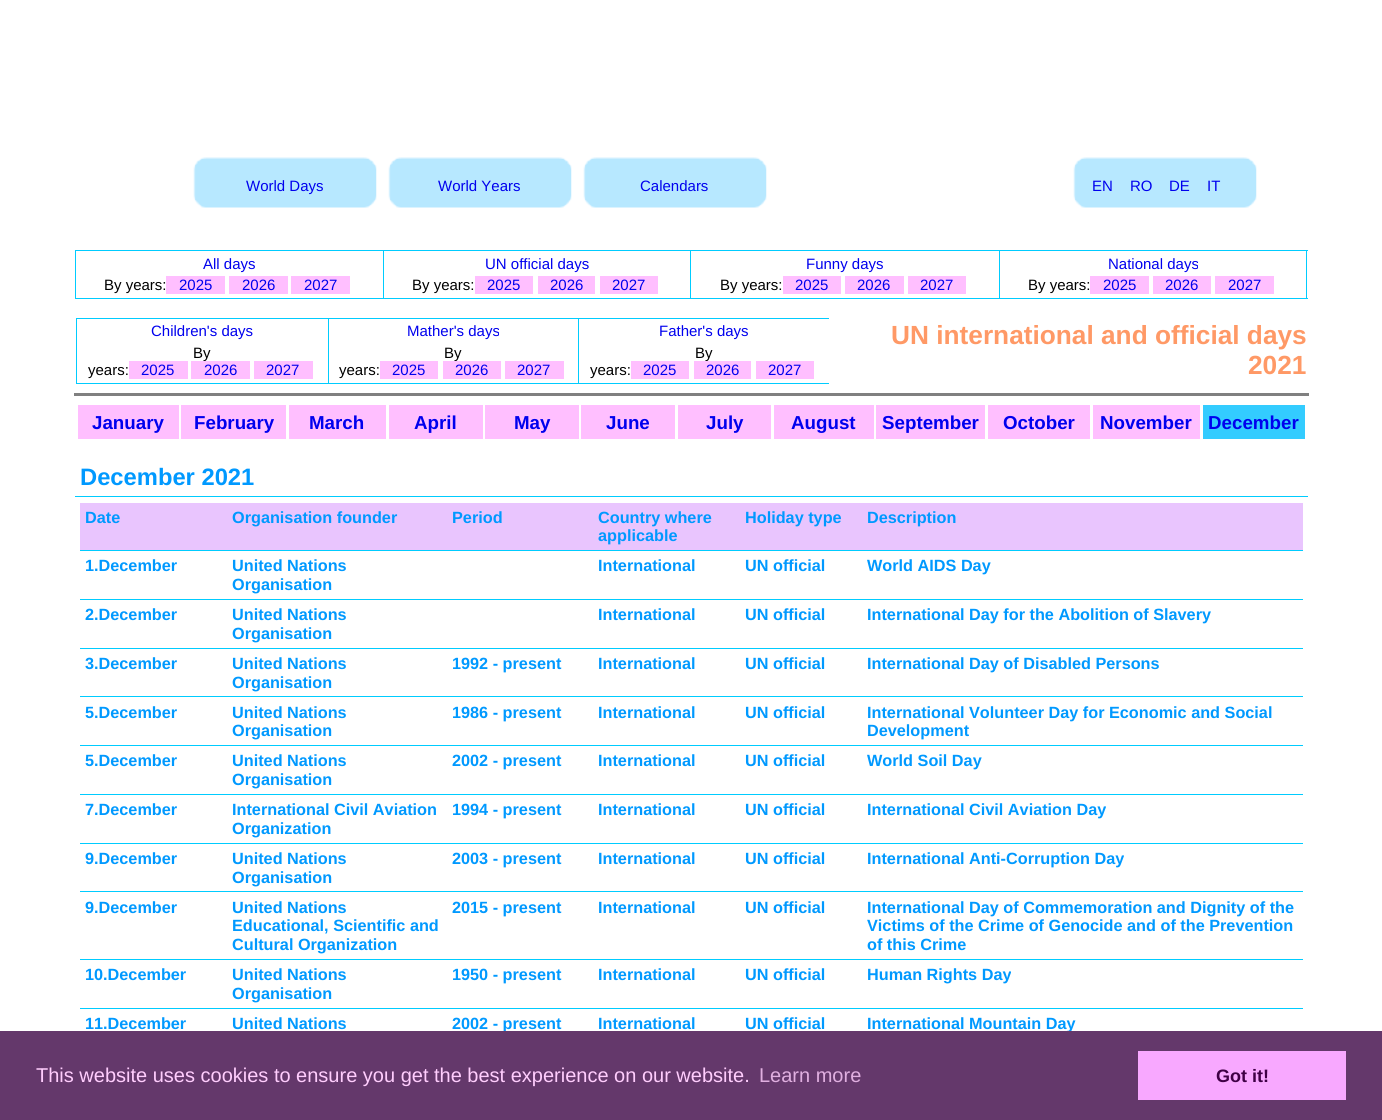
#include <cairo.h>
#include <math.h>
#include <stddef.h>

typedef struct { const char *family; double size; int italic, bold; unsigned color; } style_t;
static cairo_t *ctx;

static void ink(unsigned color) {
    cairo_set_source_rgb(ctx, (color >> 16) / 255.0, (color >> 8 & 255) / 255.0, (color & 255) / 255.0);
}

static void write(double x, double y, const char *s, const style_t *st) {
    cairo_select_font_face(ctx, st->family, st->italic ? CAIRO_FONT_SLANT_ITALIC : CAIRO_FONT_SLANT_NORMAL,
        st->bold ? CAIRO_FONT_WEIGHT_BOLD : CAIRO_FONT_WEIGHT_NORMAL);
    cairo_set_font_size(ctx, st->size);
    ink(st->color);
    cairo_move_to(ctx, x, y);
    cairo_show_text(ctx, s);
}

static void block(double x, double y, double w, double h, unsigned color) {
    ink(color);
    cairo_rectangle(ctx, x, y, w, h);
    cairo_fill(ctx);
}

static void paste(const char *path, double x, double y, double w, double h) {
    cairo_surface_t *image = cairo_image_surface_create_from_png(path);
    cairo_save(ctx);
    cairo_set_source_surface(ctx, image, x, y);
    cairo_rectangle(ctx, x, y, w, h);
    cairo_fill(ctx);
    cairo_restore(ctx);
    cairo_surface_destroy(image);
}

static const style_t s1 = {"Liberation Sans", 15, 0, 0, 0x0000ee};
static const style_t s2 = {"Liberation Sans", 15, 0, 0, 0x000000};
static const style_t s3 = {"Liberation Sans", 26.25, 0, 1, 0xff9966};
static const style_t s4 = {"Liberation Sans", 18.75, 0, 1, 0x0000ee};
static const style_t s5 = {"Liberation Sans", 23.75, 0, 1, 0x0099ff};
static const style_t s6 = {"Liberation Sans", 16.25, 0, 1, 0x0099ff};
static const style_t s7 = {"Liberation Sans", 20, 0, 0, 0xffcdfd};
static const style_t s8 = {"Liberation Sans", 20, 0, 0, 0xe0afe0};
static const style_t s9 = {"Liberation Sans", 18, 0, 1, 0x3f0045};

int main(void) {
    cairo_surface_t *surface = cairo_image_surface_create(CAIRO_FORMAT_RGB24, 1382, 1120);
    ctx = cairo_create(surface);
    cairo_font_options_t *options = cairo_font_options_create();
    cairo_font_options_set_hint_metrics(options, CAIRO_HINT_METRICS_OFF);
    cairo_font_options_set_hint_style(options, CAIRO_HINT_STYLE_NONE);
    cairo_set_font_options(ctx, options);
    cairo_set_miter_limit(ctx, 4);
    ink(0xffffff);
    cairo_paint(ctx);
    paste("pic1.png", 193, 157, 184, 51);
    write(246, 191, "World Days", &s1);
    paste("pic2.png", 388, 157, 184, 51);
    write(438, 191, "World Years", &s1);
    paste("pic3.png", 583, 157, 184, 51);
    write(640, 191, "Calendars", &s1);
    paste("pic2.png", 1073, 157, 184, 51);
    write(1092, 191, "EN", &s1);
    write(1130, 191, "RO", &s1);
    write(1169, 191, "DE", &s1);
    write(1207, 191, "IT", &s1);
    block(75, 250, 1233, 1, 0x00ccff);
    block(75, 250, 1, 26, 0x00ccff);
    write(203, 269, "All days", &s1);
    block(383, 250, 1, 26, 0x00ccff);
    write(485, 269, "UN official days", &s1);
    block(690, 250, 1, 26, 0x00ccff);
    write(806, 269, "Funny days", &s1);
    block(1306, 250, 1, 49, 0x00ccff);
    block(999, 250, 1, 26, 0x00ccff);
    write(1108, 269, "National days", &s1);
    block(75, 298, 1233, 1, 0x00ccff);
    block(75, 276, 1, 23, 0x00ccff);
    write(104, 290, "By years:", &s2);
    block(166, 276, 59, 18, 0xffbfff);
    write(179, 290, "2025", &s1);
    block(229, 276, 59, 18, 0xffbfff);
    write(242, 290, "2026", &s1);
    block(291, 276, 59, 18, 0xffbfff);
    write(304, 290, "2027", &s1);
    block(383, 276, 1, 23, 0x00ccff);
    write(412, 290, "By years:", &s2);
    block(475, 276, 58, 18, 0xffbfff);
    write(487, 290, "2025", &s1);
    block(538, 276, 57, 18, 0xffbfff);
    write(550, 290, "2026", &s1);
    block(600, 276, 58, 18, 0xffbfff);
    write(612, 290, "2027", &s1);
    block(690, 276, 1, 23, 0x00ccff);
    write(720, 290, "By years:", &s2);
    block(783, 276, 58, 18, 0xffbfff);
    write(795, 290, "2025", &s1);
    block(845, 276, 59, 18, 0xffbfff);
    write(857, 290, "2026", &s1);
    block(908, 276, 58, 18, 0xffbfff);
    write(920, 290, "2027", &s1);
    block(999, 276, 1, 23, 0x00ccff);
    write(1028, 290, "By years:", &s2);
    block(1090, 276, 59, 18, 0xffbfff);
    write(1103, 290, "2025", &s1);
    block(1153, 276, 58, 18, 0xffbfff);
    write(1165, 290, "2026", &s1);
    block(1215, 276, 59, 18, 0xffbfff);
    write(1228, 290, "2027", &s1);
    block(76, 318, 753, 1, 0x00ccff);
    block(76, 318, 1, 26, 0x00ccff);
    write(151, 336, "Children's days", &s1);
    block(328, 318, 1, 26, 0x00ccff);
    write(407, 336, "Mather's days", &s1);
    block(578, 318, 1, 26, 0x00ccff);
    write(659, 336, "Father's days", &s1);
    block(76, 383, 753, 1, 0x00ccff);
    block(76, 344, 1, 40, 0x00ccff);
    write(193, 358, "By", &s2);
    write(88, 375, "years:", &s2);
    block(129, 361, 59, 18, 0xffbfff);
    write(141, 375, "2025", &s1);
    block(191, 361, 59, 18, 0xffbfff);
    write(204, 375, "2026", &s1);
    block(254, 361, 59, 18, 0xffbfff);
    write(266, 375, "2027", &s1);
    block(328, 344, 1, 40, 0x00ccff);
    write(444, 358, "By", &s2);
    write(339, 375, "years:", &s2);
    block(380, 361, 58, 18, 0xffbfff);
    write(392, 375, "2025", &s1);
    block(443, 361, 58, 18, 0xffbfff);
    write(455, 375, "2026", &s1);
    block(505, 361, 59, 18, 0xffbfff);
    write(517, 375, "2027", &s1);
    block(578, 344, 1, 40, 0x00ccff);
    write(695, 358, "By", &s2);
    write(590, 375, "years:", &s2);
    block(631, 361, 58, 18, 0xffbfff);
    write(643, 375, "2025", &s1);
    block(694, 361, 57, 18, 0xffbfff);
    write(706, 375, "2026", &s1);
    block(756, 361, 58, 18, 0xffbfff);
    write(768, 375, "2027", &s1);
    write(891, 344, "UN international and official days", &s3);
    write(1248, 374, "2021", &s3);
    block(74, 393, 1235, 3, 0x808080);
    block(78, 405, 101, 34, 0xffbfff);
    write(92, 429, "January", &s4);
    block(181, 405, 105, 34, 0xffbfff);
    write(194, 429, "February", &s4);
    block(289, 405, 97, 34, 0xffbfff);
    write(309, 429, "March", &s4);
    block(389, 405, 94, 34, 0xffbfff);
    write(414, 429, "April", &s4);
    block(485, 405, 94, 34, 0xffbfff);
    write(514, 429, "May", &s4);
    block(581, 405, 94, 34, 0xffbfff);
    write(606, 429, "June", &s4);
    block(678, 405, 93, 34, 0xffbfff);
    write(706, 429, "July", &s4);
    block(774, 405, 100, 34, 0xffbfff);
    write(791, 429, "August", &s4);
    block(876, 405, 109, 34, 0xffbfff);
    write(882, 429, "September", &s4);
    block(988, 405, 102, 34, 0xffbfff);
    write(1003, 429, "October", &s4);
    block(1093, 405, 107, 34, 0xffbfff);
    write(1100, 429, "November", &s4);
    block(1203, 405, 102, 34, 0x33ccff);
    write(1208, 429, "December", &s4);
    block(75, 496, 1233, 1, 0x00ccff);
    write(80, 485, "December 2021", &s5);
    block(80, 503, 1223, 47, 0xe9c5fe);
    block(80, 550, 1223, 1, 0x00ccff);
    write(85, 523, "Date", &s6);
    write(232, 523, "Organisation founder", &s6);
    write(452, 523, "Period", &s6);
    write(598, 523, "Country where", &s6);
    write(598, 541, "applicable", &s6);
    write(745, 523, "Holiday type", &s6);
    write(867, 523, "Description", &s6);
    block(80, 599, 1223, 1, 0x00ccff);
    write(85, 571, "1.December", &s6);
    write(232, 571, "United Nations", &s6);
    write(232, 590, "Organisation", &s6);
    write(598, 571, "International", &s6);
    write(745, 571, "UN official", &s6);
    write(867, 571, "World AIDS Day", &s6);
    block(80, 648, 1223, 1, 0x00ccff);
    write(85, 620, "2.December", &s6);
    write(232, 620, "United Nations", &s6);
    write(232, 639, "Organisation", &s6);
    write(598, 620, "International", &s6);
    write(745, 620, "UN official", &s6);
    write(867, 620, "International Day for the Abolition of Slavery", &s6);
    block(80, 696, 1223, 1, 0x00ccff);
    write(85, 669, "3.December", &s6);
    write(232, 669, "United Nations", &s6);
    write(232, 688, "Organisation", &s6);
    write(452, 669, "1992 - present", &s6);
    write(598, 669, "International", &s6);
    write(745, 669, "UN official", &s6);
    write(867, 669, "International Day of Disabled Persons", &s6);
    block(80, 745, 1223, 1, 0x00ccff);
    write(85, 718, "5.December", &s6);
    write(232, 718, "United Nations", &s6);
    write(232, 736, "Organisation", &s6);
    write(452, 718, "1986 - present", &s6);
    write(598, 718, "International", &s6);
    write(745, 718, "UN official", &s6);
    write(867, 718, "International Volunteer Day for Economic and Social", &s6);
    write(867, 736, "Development", &s6);
    block(80, 794, 1223, 1, 0x00ccff);
    write(85, 766, "5.December", &s6);
    write(232, 766, "United Nations", &s6);
    write(232, 785, "Organisation", &s6);
    write(452, 766, "2002 - present", &s6);
    write(598, 766, "International", &s6);
    write(745, 766, "UN official", &s6);
    write(867, 766, "World Soil Day", &s6);
    block(80, 843, 1223, 1, 0x00ccff);
    write(85, 815, "7.December", &s6);
    write(232, 815, "International Civil Aviation", &s6);
    write(232, 834, "Organization", &s6);
    write(452, 815, "1994 - present", &s6);
    write(598, 815, "International", &s6);
    write(745, 815, "UN official", &s6);
    write(867, 815, "International Civil Aviation Day", &s6);
    block(80, 891, 1223, 1, 0x00ccff);
    write(85, 864, "9.December", &s6);
    write(232, 864, "United Nations", &s6);
    write(232, 883, "Organisation", &s6);
    write(452, 864, "2003 - present", &s6);
    write(598, 864, "International", &s6);
    write(745, 864, "UN official", &s6);
    write(867, 864, "International Anti-Corruption Day", &s6);
    block(80, 959, 1223, 1, 0x00ccff);
    write(85, 913, "9.December", &s6);
    write(232, 913, "United Nations", &s6);
    write(232, 931, "Educational, Scientific and", &s6);
    write(232, 950, "Cultural Organization", &s6);
    write(452, 913, "2015 - present", &s6);
    write(598, 913, "International", &s6);
    write(745, 913, "UN official", &s6);
    write(867, 913, "International Day of Commemoration and Dignity of the", &s6);
    write(867, 931, "Victims of the Crime of Genocide and of the Prevention", &s6);
    write(867, 950, "of this Crime", &s6);
    block(80, 1008, 1223, 1, 0x00ccff);
    write(85, 980, "10.December", &s6);
    write(232, 980, "United Nations", &s6);
    write(232, 999, "Organisation", &s6);
    write(452, 980, "1950 - present", &s6);
    write(598, 980, "International", &s6);
    write(745, 980, "UN official", &s6);
    write(867, 980, "Human Rights Day", &s6);
    write(85, 1029, "11.December", &s6);
    write(232, 1029, "United Nations", &s6);
    write(452, 1029, "2002 - present", &s6);
    write(598, 1029, "International", &s6);
    write(745, 1029, "UN official", &s6);
    write(867, 1029, "International Mountain Day", &s6);
    block(0, 1031, 1382, 89, 0x64386b);
    write(36, 1082, "This website uses cookies to ensure you get the best experience on our website.", &s7);
    write(759, 1082, "Learn more", &s8);
    block(1138, 1051, 208, 49, 0xf8a8ff);
    write(1216, 1082, "Got it!", &s9);
    cairo_surface_write_to_png(surface, "screenshot.png");
    cairo_font_options_destroy(options);
    cairo_destroy(ctx);
    cairo_surface_destroy(surface);
    return 0;
}
